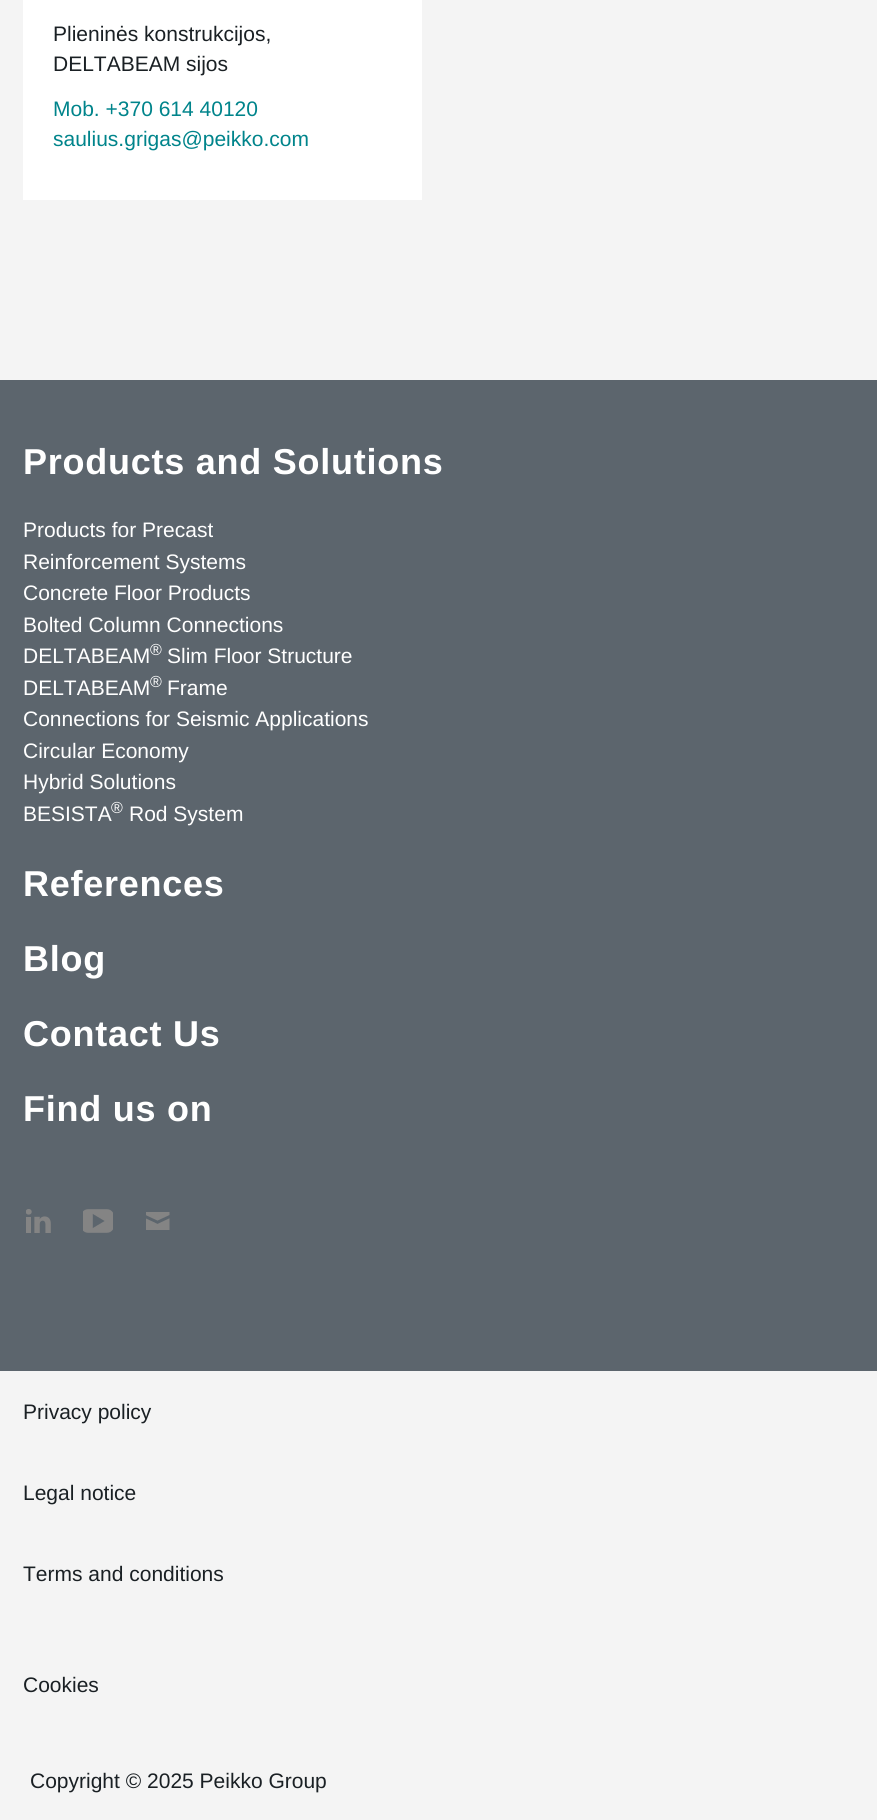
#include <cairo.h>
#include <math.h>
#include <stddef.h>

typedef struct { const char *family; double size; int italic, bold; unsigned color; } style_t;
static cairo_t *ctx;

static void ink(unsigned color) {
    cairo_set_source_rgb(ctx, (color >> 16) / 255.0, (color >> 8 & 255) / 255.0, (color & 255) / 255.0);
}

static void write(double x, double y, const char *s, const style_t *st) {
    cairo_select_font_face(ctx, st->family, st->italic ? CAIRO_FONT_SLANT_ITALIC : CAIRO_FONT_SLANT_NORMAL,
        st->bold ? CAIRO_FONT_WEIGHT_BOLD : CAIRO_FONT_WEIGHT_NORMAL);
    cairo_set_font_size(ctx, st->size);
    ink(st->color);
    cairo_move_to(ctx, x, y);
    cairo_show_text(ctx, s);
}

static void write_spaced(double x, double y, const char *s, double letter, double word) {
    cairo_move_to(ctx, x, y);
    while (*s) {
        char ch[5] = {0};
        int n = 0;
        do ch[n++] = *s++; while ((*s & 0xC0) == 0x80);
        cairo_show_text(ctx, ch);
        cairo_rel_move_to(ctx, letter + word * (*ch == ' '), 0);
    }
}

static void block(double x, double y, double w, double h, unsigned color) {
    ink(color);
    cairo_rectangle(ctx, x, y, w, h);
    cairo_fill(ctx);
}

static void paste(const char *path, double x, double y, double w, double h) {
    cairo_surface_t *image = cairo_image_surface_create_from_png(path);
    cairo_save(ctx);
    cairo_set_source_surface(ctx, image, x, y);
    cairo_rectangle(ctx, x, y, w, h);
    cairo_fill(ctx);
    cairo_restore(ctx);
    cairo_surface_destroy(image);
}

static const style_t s1 = {"Liberation Sans", 21, 0, 0, 0x1a2024};
static const style_t s2 = {"Liberation Sans", 21, 0, 0, 0x00848b};
static const style_t s3 = {"Liberation Sans", 21, 0, 0, 0xffffff};
static const style_t s4 = {"Liberation Sans", 16, 0, 0, 0xffffff};

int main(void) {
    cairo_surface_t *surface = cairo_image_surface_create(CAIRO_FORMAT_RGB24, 877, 1820);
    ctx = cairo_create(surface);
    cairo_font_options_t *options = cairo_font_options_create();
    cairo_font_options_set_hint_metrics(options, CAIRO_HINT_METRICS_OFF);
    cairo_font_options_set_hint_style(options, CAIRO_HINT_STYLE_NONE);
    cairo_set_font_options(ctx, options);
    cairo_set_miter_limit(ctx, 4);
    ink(0xf4f4f4);
    cairo_paint(ctx);
    block(23, 0, 399, 200, 0xffffff);
    write(53, 41, "Plieninės konstrukcijos,", &s1);
    write(53, 71, "DELTABEAM sijos", &s1);
    write(53, 116, "Mob. +370 614 40120", &s2);
    write(53, 146, "saulius.grigas@peikko.com", &s2);
    block(0, 380, 877, 991, 0x5c656d);
    cairo_select_font_face(ctx, "Liberation Sans", CAIRO_FONT_SLANT_NORMAL, CAIRO_FONT_WEIGHT_BOLD);
    cairo_set_font_size(ctx, 36);
    ink(0xffffff);
    write_spaced(23, 474, "Products and Solutions", 0.75, 0);
    write(23, 537, "Products for Precast", &s3);
    write(23, 569, "Reinforcement Systems", &s3);
    write(23, 600, "Concrete Floor Products", &s3);
    write(23, 632, "Bolted Column Connections", &s3);
    write(23, 663, "DELTABEAM", &s3);
    write(150, 655, "®", &s4);
    write(167, 663, "Slim Floor Structure", &s3);
    write(23, 695, "DELTABEAM", &s3);
    write(150, 687, "®", &s4);
    write(167, 695, "Frame", &s3);
    write(23, 726, "Connections for Seismic Applications", &s3);
    write(23, 758, "Circular Economy", &s3);
    write(23, 789, "Hybrid Solutions", &s3);
    write(23, 821, "BESISTA", &s3);
    write(111, 813, "®", &s4);
    write(129, 821, "Rod System", &s3);
    cairo_select_font_face(ctx, "Liberation Sans", CAIRO_FONT_SLANT_NORMAL, CAIRO_FONT_WEIGHT_BOLD);
    cairo_set_font_size(ctx, 36);
    write_spaced(23, 896, "References", 0.75, 0);
    write_spaced(23, 971, "Blog", 0.75, 0);
    write_spaced(23, 1046, "Contact Us", 0.75, 0);
    write_spaced(23, 1121, "Find us on", 0.75, 0);
    paste("pic1.png", 26, 1209, 25, 24);
    paste("pic2.png", 83, 1209, 30, 24);
    paste("pic3.png", 146, 1212, 24, 18);
    write(23, 1419, "Privacy policy", &s1);
    write(23, 1500, "Legal notice", &s1);
    write(23, 1581, "Terms and conditions", &s1);
    write(23, 1692, "Cookies", &s1);
    write(30, 1788, "Copyright © 2025 Peikko Group", &s1);
    cairo_surface_write_to_png(surface, "screenshot.png");
    cairo_font_options_destroy(options);
    cairo_destroy(ctx);
    cairo_surface_destroy(surface);
    return 0;
}
